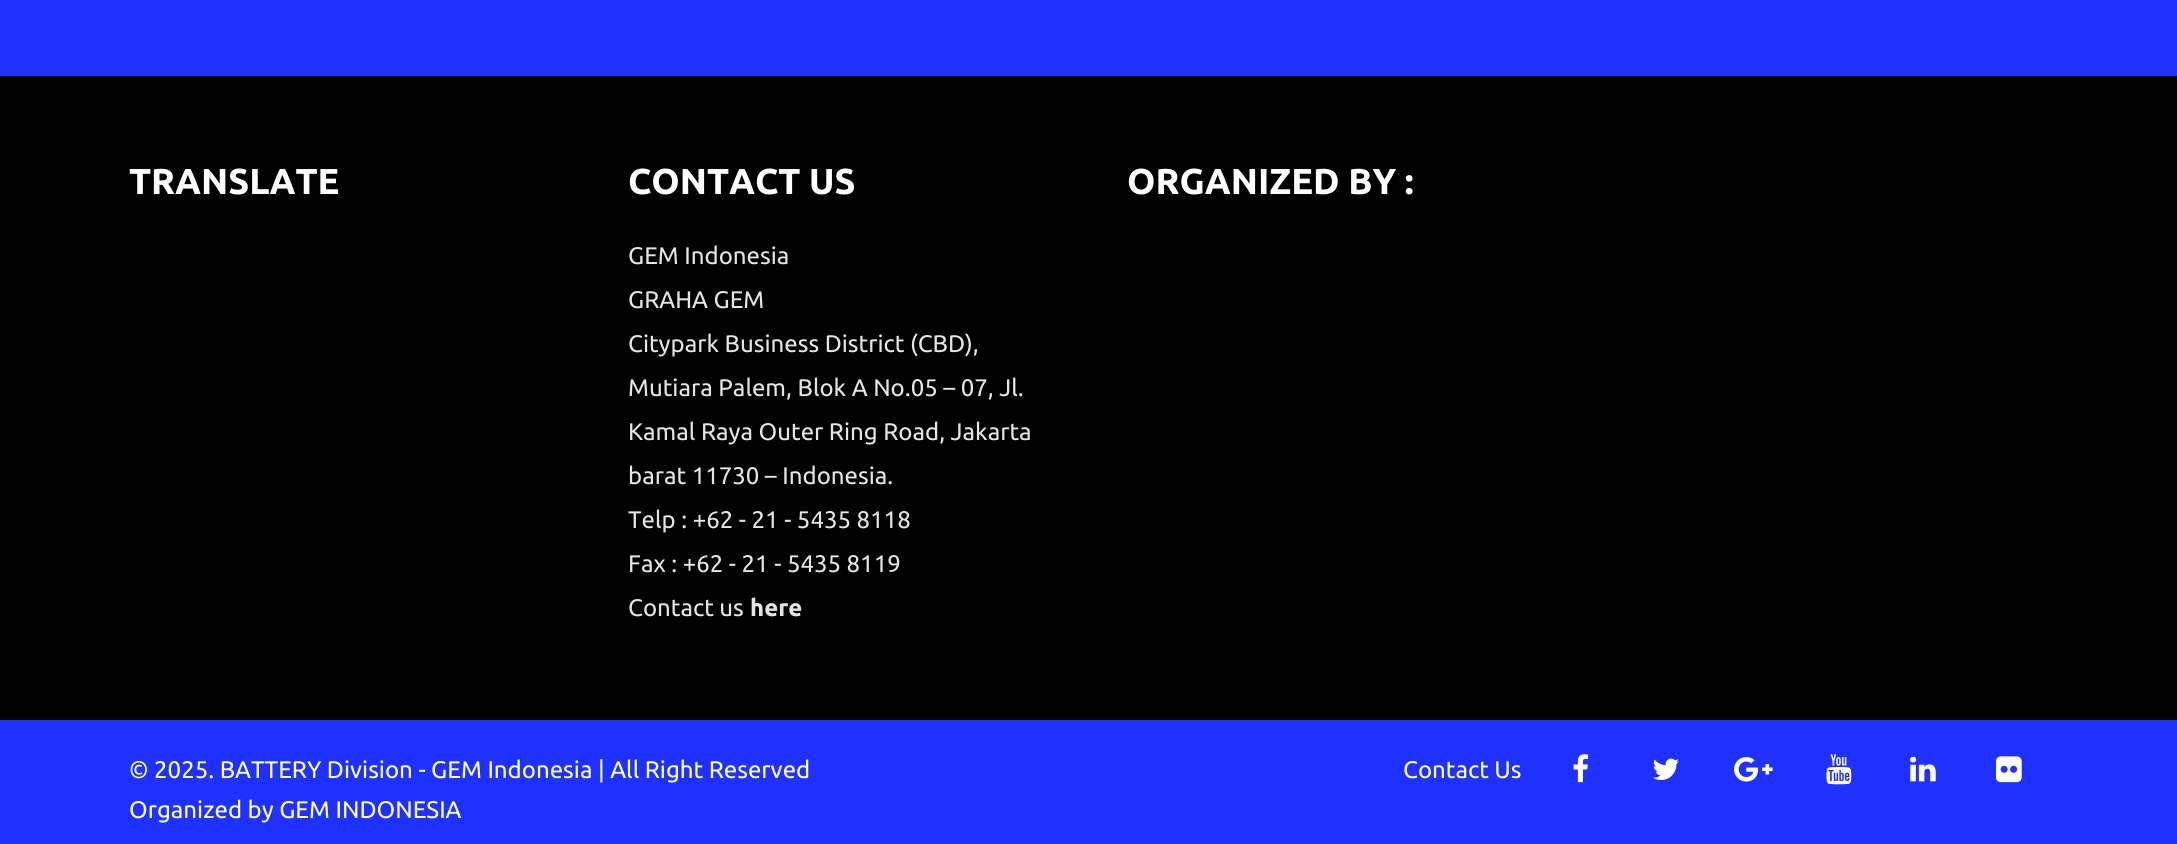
#include <cairo.h>
#include <math.h>
#include <stddef.h>

typedef struct { const char *family; double size; int italic, bold; unsigned color; } style_t;
static cairo_t *ctx;

static void ink(unsigned color) {
    cairo_set_source_rgb(ctx, (color >> 16) / 255.0, (color >> 8 & 255) / 255.0, (color & 255) / 255.0);
}

static void write(double x, double y, const char *s, const style_t *st) {
    cairo_select_font_face(ctx, st->family, st->italic ? CAIRO_FONT_SLANT_ITALIC : CAIRO_FONT_SLANT_NORMAL,
        st->bold ? CAIRO_FONT_WEIGHT_BOLD : CAIRO_FONT_WEIGHT_NORMAL);
    cairo_set_font_size(ctx, st->size);
    ink(st->color);
    cairo_move_to(ctx, x, y);
    cairo_show_text(ctx, s);
}

static void block(double x, double y, double w, double h, unsigned color) {
    ink(color);
    cairo_rectangle(ctx, x, y, w, h);
    cairo_fill(ctx);
}

static void paste(const char *path, double x, double y, double w, double h) {
    cairo_surface_t *image = cairo_image_surface_create_from_png(path);
    cairo_save(ctx);
    cairo_set_source_surface(ctx, image, x, y);
    cairo_rectangle(ctx, x, y, w, h);
    cairo_fill(ctx);
    cairo_restore(ctx);
    cairo_surface_destroy(image);
}

static const style_t s1 = {"Ubuntu", 36, 0, 1, 0xffffff};
static const style_t s2 = {"Ubuntu", 24, 0, 0, 0xe5e5e5};
static const style_t s3 = {"Ubuntu", 24, 0, 1, 0xe5e5e5};
static const style_t s4 = {"Ubuntu", 24, 0, 0, 0xffffff};

int main(void) {
    cairo_surface_t *surface = cairo_image_surface_create(CAIRO_FORMAT_RGB24, 2177, 844);
    ctx = cairo_create(surface);
    cairo_font_options_t *options = cairo_font_options_create();
    cairo_font_options_set_hint_metrics(options, CAIRO_HINT_METRICS_OFF);
    cairo_font_options_set_hint_style(options, CAIRO_HINT_STYLE_NONE);
    cairo_set_font_options(ctx, options);
    cairo_set_miter_limit(ctx, 4);
    ink(0x1e31ff);
    cairo_paint(ctx);
    block(0, 76, 2177, 644, 0x000000);
    write(129, 194, "TRANSLATE", &s1);
    write(628, 194, "CONTACT US", &s1);
    write(628, 264, "GEM Indonesia", &s2);
    write(628, 308, "GRAHA GEM", &s2);
    write(628, 352, "Citypark Business District (CBD),", &s2);
    write(628, 396, "Mutiara Palem, Blok A No.05 – 07, Jl.", &s2);
    write(628, 440, "Kamal Raya Outer Ring Road, Jakarta", &s2);
    write(628, 484, "barat 11730 – Indonesia.", &s2);
    write(628, 528, "Telp : +62 - 21 - 5435 8118", &s2);
    write(628, 572, "Fax : +62 - 21 - 5435 8119", &s2);
    write(628, 616, "Contact us", &s2);
    write(750, 616, "here", &s3);
    write(1127, 194, "ORGANIZED BY :", &s1);
    write(129, 778, "© 2025. BATTERY Division - GEM Indonesia | All Right Reserved", &s4);
    write(129, 818, "Organized by GEM INDONESIA", &s4);
    write(1403, 778, "Contact Us", &s4);
    paste("pic1.png", 1573, 754, 16, 29);
    paste("pic2.png", 1653, 758, 26, 22);
    paste("pic3.png", 1734, 757, 39, 25);
    paste("pic4.png", 1826, 754, 26, 31);
    paste("pic5.png", 1910, 756, 26, 26);
    paste("pic6.png", 1996, 756, 26, 27);
    cairo_surface_write_to_png(surface, "screenshot.png");
    cairo_font_options_destroy(options);
    cairo_destroy(ctx);
    cairo_surface_destroy(surface);
    return 0;
}
